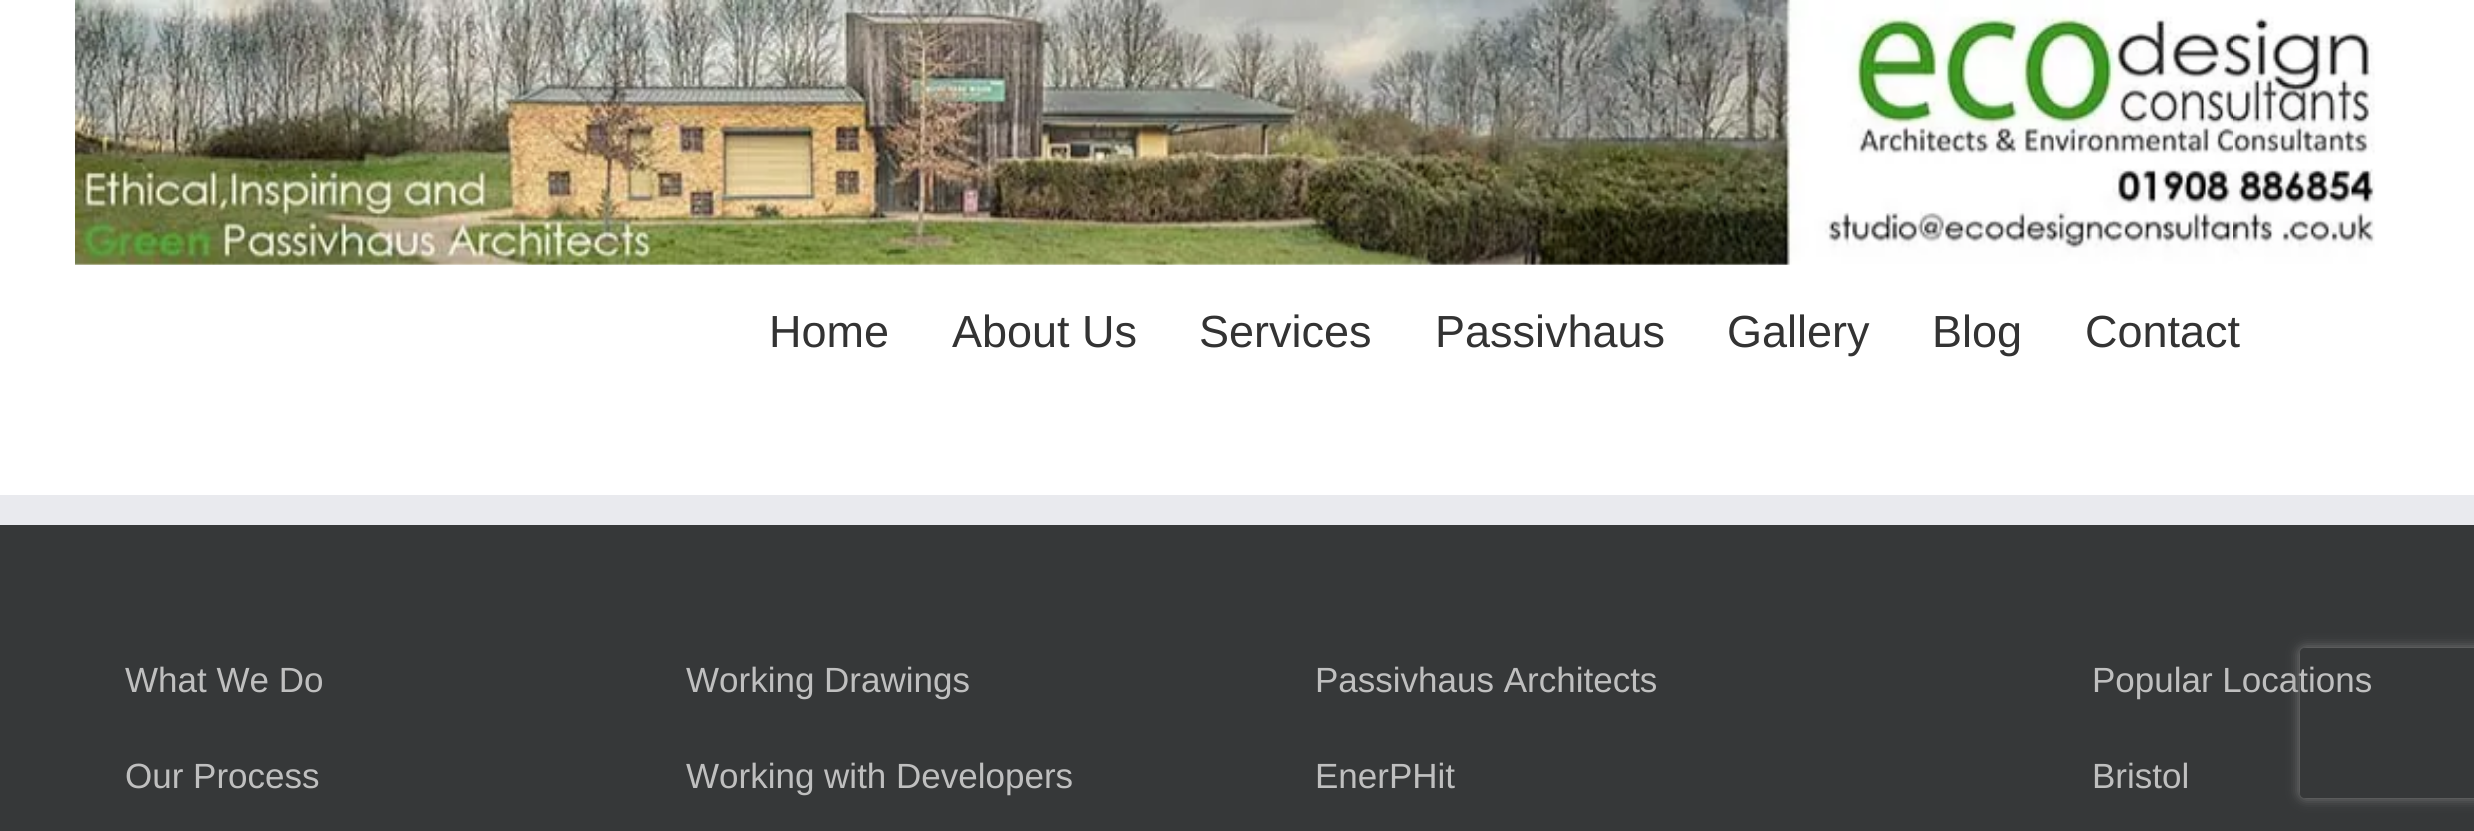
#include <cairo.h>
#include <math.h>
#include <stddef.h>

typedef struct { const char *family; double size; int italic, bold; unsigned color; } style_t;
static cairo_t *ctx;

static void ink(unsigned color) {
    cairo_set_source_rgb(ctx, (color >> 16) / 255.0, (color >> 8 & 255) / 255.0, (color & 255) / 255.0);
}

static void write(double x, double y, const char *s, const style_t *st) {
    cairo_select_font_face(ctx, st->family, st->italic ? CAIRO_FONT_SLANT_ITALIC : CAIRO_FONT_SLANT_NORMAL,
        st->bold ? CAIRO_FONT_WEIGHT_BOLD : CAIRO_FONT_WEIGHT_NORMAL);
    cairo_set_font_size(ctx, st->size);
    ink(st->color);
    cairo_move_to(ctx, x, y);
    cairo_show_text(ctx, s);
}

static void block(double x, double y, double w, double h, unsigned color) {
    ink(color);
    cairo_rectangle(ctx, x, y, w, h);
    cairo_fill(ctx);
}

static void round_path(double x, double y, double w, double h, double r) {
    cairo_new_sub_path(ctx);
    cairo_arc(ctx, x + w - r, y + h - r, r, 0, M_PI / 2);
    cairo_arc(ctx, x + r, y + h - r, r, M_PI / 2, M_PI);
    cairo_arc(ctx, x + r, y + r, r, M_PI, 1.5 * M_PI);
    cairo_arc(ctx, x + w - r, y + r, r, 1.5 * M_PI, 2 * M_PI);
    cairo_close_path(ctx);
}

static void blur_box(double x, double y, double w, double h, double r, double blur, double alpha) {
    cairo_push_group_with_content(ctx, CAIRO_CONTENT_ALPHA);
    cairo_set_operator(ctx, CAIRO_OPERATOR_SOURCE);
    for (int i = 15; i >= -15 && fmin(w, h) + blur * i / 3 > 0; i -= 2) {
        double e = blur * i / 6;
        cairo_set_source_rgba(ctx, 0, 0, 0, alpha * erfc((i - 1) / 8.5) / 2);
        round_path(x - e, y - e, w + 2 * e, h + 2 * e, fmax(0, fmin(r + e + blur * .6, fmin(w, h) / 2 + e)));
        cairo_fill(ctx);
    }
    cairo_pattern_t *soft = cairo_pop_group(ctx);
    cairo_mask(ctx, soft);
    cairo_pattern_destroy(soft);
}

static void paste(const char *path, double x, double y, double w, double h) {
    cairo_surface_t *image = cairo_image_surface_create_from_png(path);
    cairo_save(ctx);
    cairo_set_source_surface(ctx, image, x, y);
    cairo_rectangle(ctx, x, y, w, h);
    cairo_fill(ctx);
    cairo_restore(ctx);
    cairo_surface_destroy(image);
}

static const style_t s1 = {"Liberation Sans", 45, 0, 0, 0x333333};
static const style_t s2 = {"Liberation Sans", 35, 0, 0, 0xbfbfbf};

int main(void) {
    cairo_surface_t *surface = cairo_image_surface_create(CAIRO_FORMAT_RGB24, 2474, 831);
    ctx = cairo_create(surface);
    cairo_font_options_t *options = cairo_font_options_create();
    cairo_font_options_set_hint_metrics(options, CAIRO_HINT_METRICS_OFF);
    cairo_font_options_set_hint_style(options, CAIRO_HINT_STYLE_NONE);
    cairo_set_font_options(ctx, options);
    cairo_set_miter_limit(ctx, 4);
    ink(0xffffff);
    cairo_paint(ctx);
    paste("pic1.png", 75, 0, 2300, 265);
    write(769, 347, "Home", &s1);
    write(952, 347, "About Us", &s1);
    write(1199, 347, "Services", &s1);
    write(1435, 347, "Passivhaus", &s1);
    write(1727, 347, "Gallery", &s1);
    write(1932, 347, "Blog", &s1);
    write(2085, 347, "Contact", &s1);
    block(0, 495, 2474, 30, 0xe9eaee);
    block(0, 525, 2474, 306, 0x363839);
    write(125, 692, "What We Do", &s2);
    write(125, 788, "Our Process", &s2);
    write(686, 692, "Working Drawings", &s2);
    write(686, 788, "Working with Developers", &s2);
    write(1315, 692, "Passivhaus Architects", &s2);
    write(1315, 788, "EnerPHit", &s2);
    write(2092, 692, "Popular Locations", &s2);
    write(2092, 788, "Bristol", &s2);
    cairo_save(ctx);
    cairo_set_fill_rule(ctx, CAIRO_FILL_RULE_EVEN_ODD);
    cairo_new_path(ctx);
    cairo_move_to(ctx, 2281, 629);
    cairo_line_to(ctx, 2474, 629);
    cairo_line_to(ctx, 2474, 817);
    cairo_line_to(ctx, 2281, 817);
    cairo_close_path(ctx);
    cairo_move_to(ctx, 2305, 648);
    cairo_line_to(ctx, 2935, 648);
    cairo_curve_to(ctx, 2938, 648, 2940, 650, 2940, 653);
    cairo_line_to(ctx, 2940, 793);
    cairo_curve_to(ctx, 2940, 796, 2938, 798, 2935, 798);
    cairo_line_to(ctx, 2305, 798);
    cairo_curve_to(ctx, 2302, 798, 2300, 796, 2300, 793);
    cairo_line_to(ctx, 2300, 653);
    cairo_curve_to(ctx, 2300, 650, 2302, 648, 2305, 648);
    cairo_close_path(ctx);
    cairo_clip(ctx);
    ink(0x808080);
    blur_box(2300, 648, 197, 150, 5, 6, 1);
    cairo_restore(ctx);
    cairo_surface_write_to_png(surface, "screenshot.png");
    cairo_font_options_destroy(options);
    cairo_destroy(ctx);
    cairo_surface_destroy(surface);
    return 0;
}
